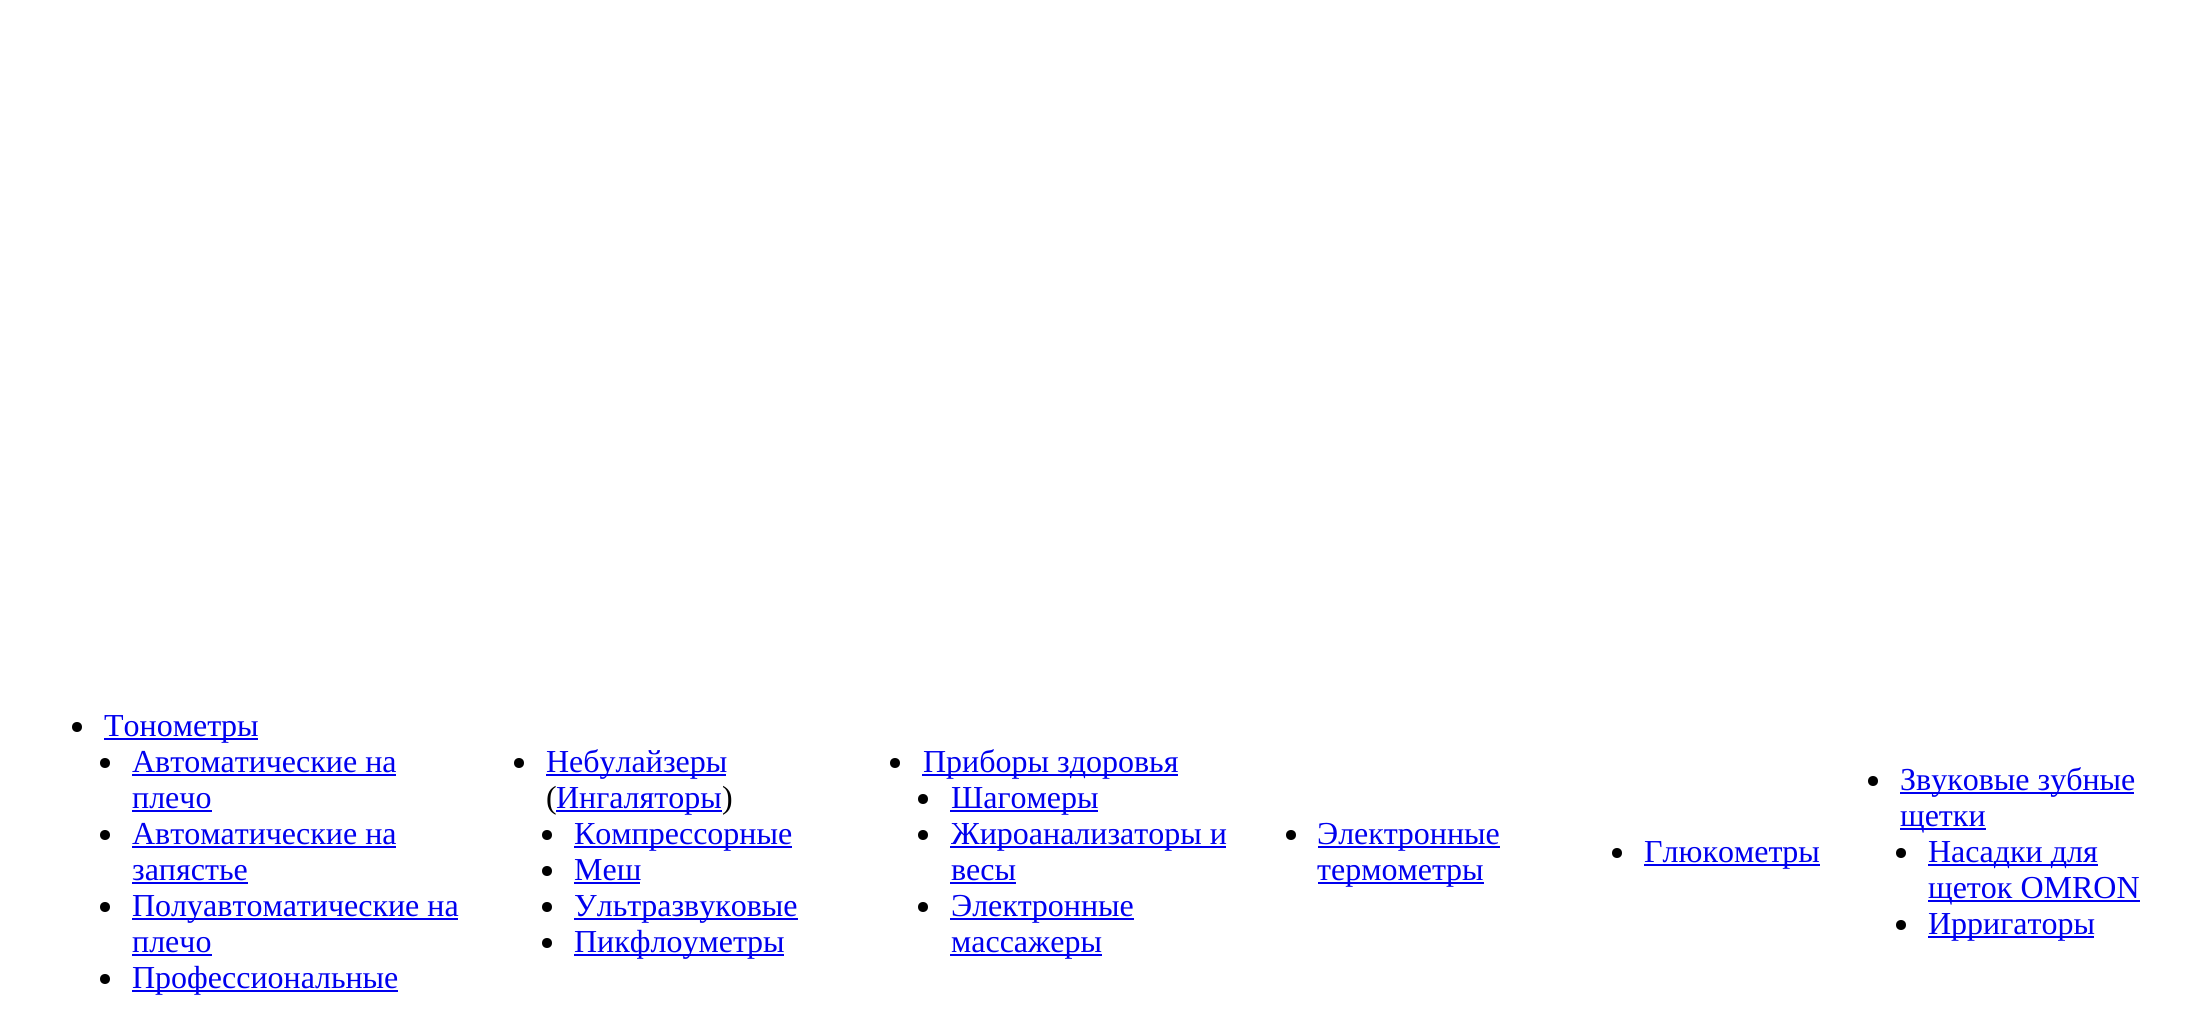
#include <cairo.h>
#include <math.h>
#include <stddef.h>

typedef struct { const char *family; double size; int italic, bold; unsigned color; } style_t;
static cairo_t *ctx;

static void ink(unsigned color) {
    cairo_set_source_rgb(ctx, (color >> 16) / 255.0, (color >> 8 & 255) / 255.0, (color & 255) / 255.0);
}

static void write(double x, double y, const char *s, const style_t *st) {
    cairo_select_font_face(ctx, st->family, st->italic ? CAIRO_FONT_SLANT_ITALIC : CAIRO_FONT_SLANT_NORMAL,
        st->bold ? CAIRO_FONT_WEIGHT_BOLD : CAIRO_FONT_WEIGHT_NORMAL);
    cairo_set_font_size(ctx, st->size);
    ink(st->color);
    cairo_move_to(ctx, x, y);
    cairo_show_text(ctx, s);
}

static void block(double x, double y, double w, double h, unsigned color) {
    ink(color);
    cairo_rectangle(ctx, x, y, w, h);
    cairo_fill(ctx);
}

static const style_t s1 = {"Liberation Serif", 32, 0, 0, 0x0000ee};
static const style_t s2 = {"Liberation Serif", 32, 0, 0, 0x000000};

int main(void) {
    cairo_surface_t *surface = cairo_image_surface_create(CAIRO_FORMAT_RGB24, 2200, 1014);
    ctx = cairo_create(surface);
    cairo_font_options_t *options = cairo_font_options_create();
    cairo_font_options_set_hint_metrics(options, CAIRO_HINT_METRICS_OFF);
    cairo_font_options_set_hint_style(options, CAIRO_HINT_STYLE_NONE);
    cairo_set_font_options(ctx, options);
    cairo_set_miter_limit(ctx, 4);
    ink(0xffffff);
    cairo_paint(ctx);
    ink(0x000000);
    cairo_arc(ctx, 77, 727, 5, 0, 2 * M_PI);
    cairo_fill(ctx);
    block(104, 738, 154, 2, 0x0000ee);
    write(104, 736, "Тонометры", &s1);
    ink(0x000000);
    cairo_new_path(ctx);
    cairo_arc(ctx, 105, 763, 5, 0, 2 * M_PI);
    cairo_fill(ctx);
    write(132, 772, "Автоматические на", &s1);
    block(132, 774, 264, 2, 0x0000ee);
    write(132, 808, "плечо", &s1);
    block(132, 810, 80, 2, 0x0000ee);
    ink(0x000000);
    cairo_new_path(ctx);
    cairo_arc(ctx, 105, 835, 5, 0, 2 * M_PI);
    cairo_fill(ctx);
    write(132, 844, "Автоматические на", &s1);
    block(132, 846, 264, 2, 0x0000ee);
    write(132, 880, "запястье", &s1);
    block(132, 882, 116, 2, 0x0000ee);
    ink(0x000000);
    cairo_new_path(ctx);
    cairo_arc(ctx, 105, 907, 5, 0, 2 * M_PI);
    cairo_fill(ctx);
    block(132, 918, 326, 2, 0x0000ee);
    write(132, 916, "Полуавтоматические на", &s1);
    write(132, 952, "плечо", &s1);
    block(132, 954, 80, 2, 0x0000ee);
    ink(0x000000);
    cairo_new_path(ctx);
    cairo_arc(ctx, 105, 979, 5, 0, 2 * M_PI);
    cairo_fill(ctx);
    block(132, 990, 266, 2, 0x0000ee);
    write(132, 988, "Профессиональные", &s1);
    ink(0x000000);
    cairo_new_path(ctx);
    cairo_arc(ctx, 519, 763, 5, 0, 2 * M_PI);
    cairo_fill(ctx);
    block(546, 774, 180, 2, 0x0000ee);
    write(546, 772, "Небулайзеры", &s1);
    write(546, 808, "(", &s2);
    block(556, 810, 166, 2, 0x0000ee);
    write(556, 808, "Ингаляторы", &s1);
    write(722, 808, ")", &s2);
    cairo_new_path(ctx);
    cairo_arc(ctx, 547, 835, 5, 0, 2 * M_PI);
    cairo_fill(ctx);
    block(574, 846, 218, 2, 0x0000ee);
    write(574, 844, "Компрессорные", &s1);
    ink(0x000000);
    cairo_new_path(ctx);
    cairo_arc(ctx, 547, 871, 5, 0, 2 * M_PI);
    cairo_fill(ctx);
    write(574, 880, "Меш", &s1);
    block(574, 882, 66, 2, 0x0000ee);
    ink(0x000000);
    cairo_new_path(ctx);
    cairo_arc(ctx, 547, 907, 5, 0, 2 * M_PI);
    cairo_fill(ctx);
    block(574, 918, 224, 2, 0x0000ee);
    write(574, 916, "Ультразвуковые", &s1);
    ink(0x000000);
    cairo_new_path(ctx);
    cairo_arc(ctx, 547, 943, 5, 0, 2 * M_PI);
    cairo_fill(ctx);
    block(574, 954, 210, 2, 0x0000ee);
    write(574, 952, "Пикфлоуметры", &s1);
    ink(0x000000);
    cairo_new_path(ctx);
    cairo_arc(ctx, 895, 763, 5, 0, 2 * M_PI);
    cairo_fill(ctx);
    block(922, 774, 256, 2, 0x0000ee);
    write(923, 772, "Приборы здоровья", &s1);
    ink(0x000000);
    cairo_new_path(ctx);
    cairo_arc(ctx, 923, 799, 5, 0, 2 * M_PI);
    cairo_fill(ctx);
    block(950, 810, 148, 2, 0x0000ee);
    write(951, 808, "Шагомеры", &s1);
    ink(0x000000);
    cairo_new_path(ctx);
    cairo_arc(ctx, 923, 835, 5, 0, 2 * M_PI);
    cairo_fill(ctx);
    block(950, 846, 276, 2, 0x0000ee);
    write(951, 844, "Жироанализаторы и", &s1);
    write(951, 880, "весы", &s1);
    block(950, 882, 66, 2, 0x0000ee);
    ink(0x000000);
    cairo_new_path(ctx);
    cairo_arc(ctx, 923, 907, 5, 0, 2 * M_PI);
    cairo_fill(ctx);
    block(950, 918, 184, 2, 0x0000ee);
    write(951, 916, "Электронные", &s1);
    block(950, 954, 152, 2, 0x0000ee);
    write(951, 952, "массажеры", &s1);
    ink(0x000000);
    cairo_new_path(ctx);
    cairo_arc(ctx, 1291, 835, 5, 0, 2 * M_PI);
    cairo_fill(ctx);
    block(1318, 846, 182, 2, 0x0000ee);
    write(1317, 844, "Электронные", &s1);
    block(1318, 882, 166, 2, 0x0000ee);
    write(1317, 880, "термометры", &s1);
    ink(0x000000);
    cairo_new_path(ctx);
    cairo_arc(ctx, 1617, 853, 5, 0, 2 * M_PI);
    cairo_fill(ctx);
    block(1644, 864, 176, 2, 0x0000ee);
    write(1644, 862, "Глюкометры", &s1);
    ink(0x000000);
    cairo_new_path(ctx);
    cairo_arc(ctx, 1873, 781, 5, 0, 2 * M_PI);
    cairo_fill(ctx);
    block(1900, 792, 234, 2, 0x0000ee);
    write(1900, 790, "Звуковые зубные", &s1);
    block(1900, 828, 86, 2, 0x0000ee);
    write(1900, 826, "щетки", &s1);
    ink(0x000000);
    cairo_new_path(ctx);
    cairo_arc(ctx, 1901, 853, 5, 0, 2 * M_PI);
    cairo_fill(ctx);
    block(1928, 864, 170, 2, 0x0000ee);
    write(1928, 862, "Насадки для", &s1);
    block(1928, 900, 212, 2, 0x0000ee);
    write(1928, 898, "щеток OMRON", &s1);
    ink(0x000000);
    cairo_new_path(ctx);
    cairo_arc(ctx, 1901, 925, 5, 0, 2 * M_PI);
    cairo_fill(ctx);
    block(1928, 936, 166, 2, 0x0000ee);
    write(1928, 934, "Ирригаторы", &s1);
    cairo_surface_write_to_png(surface, "screenshot.png");
    cairo_font_options_destroy(options);
    cairo_destroy(ctx);
    cairo_surface_destroy(surface);
    return 0;
}
